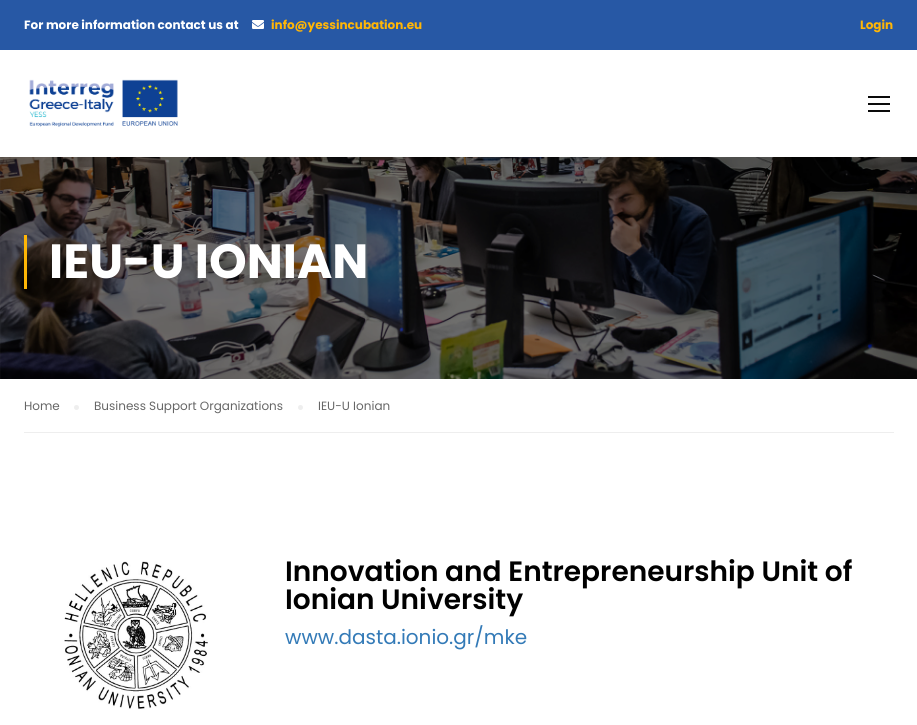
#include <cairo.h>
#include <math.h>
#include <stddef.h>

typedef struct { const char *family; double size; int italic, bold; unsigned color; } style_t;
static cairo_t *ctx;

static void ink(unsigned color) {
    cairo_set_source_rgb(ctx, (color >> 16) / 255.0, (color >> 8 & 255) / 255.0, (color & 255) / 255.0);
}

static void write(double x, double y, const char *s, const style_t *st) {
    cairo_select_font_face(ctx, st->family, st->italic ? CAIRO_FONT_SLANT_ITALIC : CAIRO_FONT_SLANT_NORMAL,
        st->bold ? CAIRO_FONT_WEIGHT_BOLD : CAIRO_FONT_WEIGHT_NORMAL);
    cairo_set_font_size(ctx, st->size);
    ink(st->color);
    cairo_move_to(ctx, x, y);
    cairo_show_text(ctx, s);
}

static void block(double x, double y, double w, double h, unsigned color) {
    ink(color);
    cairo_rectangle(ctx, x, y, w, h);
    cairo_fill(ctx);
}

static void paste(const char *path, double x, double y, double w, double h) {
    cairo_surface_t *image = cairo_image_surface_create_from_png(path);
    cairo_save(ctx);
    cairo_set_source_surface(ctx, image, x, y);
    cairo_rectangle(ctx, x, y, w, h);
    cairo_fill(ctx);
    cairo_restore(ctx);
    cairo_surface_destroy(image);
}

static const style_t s1 = {"Poppins", 12, 0, 1, 0xffffff};
static const style_t s2 = {"Poppins", 12, 0, 1, 0xffb606};
static const style_t s3 = {"Poppins", 48, 0, 1, 0xffffff};
static const style_t s4 = {"Poppins", 12, 0, 0, 0x666666};
static const style_t s5 = {"Poppins SemiBold", 28, 0, 0, 0x000000};
static const style_t s6 = {"Poppins", 20, 0, 0, 0x337ab7};

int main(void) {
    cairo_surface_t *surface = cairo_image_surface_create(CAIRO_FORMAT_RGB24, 917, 725);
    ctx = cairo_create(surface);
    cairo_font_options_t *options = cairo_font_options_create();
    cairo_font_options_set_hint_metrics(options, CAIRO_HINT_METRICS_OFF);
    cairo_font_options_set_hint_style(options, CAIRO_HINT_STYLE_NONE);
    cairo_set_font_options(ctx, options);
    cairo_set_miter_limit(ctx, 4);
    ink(0xffffff);
    cairo_paint(ctx);
    block(0, 0, 917, 50, 0x2758a5);
    write(24, 29, "For more information contact us at", &s1);
    paste("pic1.png", 252, 20, 12, 9);
    write(271, 29, "info@yessincubation.eu", &s2);
    write(860, 29, "Login", &s2);
    paste("pic2.png", 29, 79, 149, 48);
    block(868, 96, 22, 2, 0x0a0a0a);
    block(868, 103, 22, 2, 0x0a0a0a);
    block(868, 110, 22, 2, 0x0a0a0a);
    paste("pic3.png", 0, 157, 917, 222);
    block(24, 235, 3, 54, 0xffb606);
    write(49, 278, "IEU-U IONIAN", &s3);
    block(24, 432, 870, 1, 0xeeeeee);
    write(24, 410, "Home", &s4);
    ink(0xeeeeee);
    cairo_new_path(ctx);
    cairo_arc(ctx, 76.5, 407.5, 2.5, 0, 2 * M_PI);
    cairo_fill(ctx);
    write(94, 410, "Business Support Organizations", &s4);
    ink(0xeeeeee);
    cairo_new_path(ctx);
    cairo_arc(ctx, 300.5, 407.5, 2.5, 0, 2 * M_PI);
    cairo_fill(ctx);
    write(318, 410, "IEU-U Ionian", &s4);
    paste("pic4.png", 64, 561, 144, 149);
    write(285, 581, "Innovation and Entrepreneurship Unit of", &s5);
    write(285, 609, "Ionian University", &s5);
    write(285, 644, "www.dasta.ionio.gr/mke", &s6);
    cairo_surface_write_to_png(surface, "screenshot.png");
    cairo_font_options_destroy(options);
    cairo_destroy(ctx);
    cairo_surface_destroy(surface);
    return 0;
}
